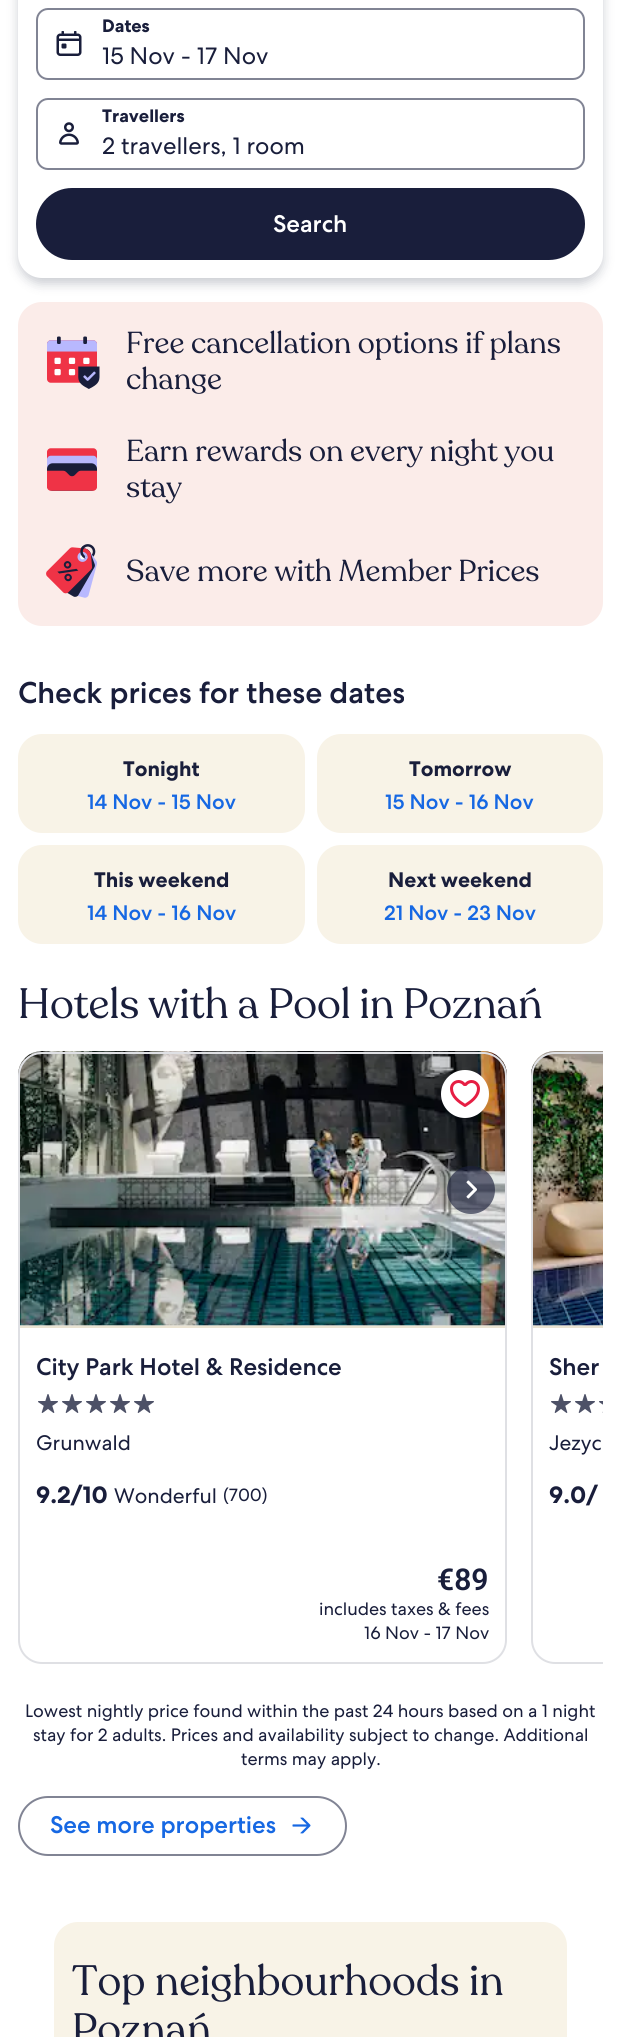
#include <cairo.h>
#include <math.h>
#include <stddef.h>

typedef struct { const char *family; double size; int italic, bold; unsigned color; } style_t;
static cairo_t *ctx;

static void ink(unsigned color) {
    cairo_set_source_rgb(ctx, (color >> 16) / 255.0, (color >> 8 & 255) / 255.0, (color & 255) / 255.0);
}

static void write(double x, double y, const char *s, const style_t *st) {
    cairo_select_font_face(ctx, st->family, st->italic ? CAIRO_FONT_SLANT_ITALIC : CAIRO_FONT_SLANT_NORMAL,
        st->bold ? CAIRO_FONT_WEIGHT_BOLD : CAIRO_FONT_WEIGHT_NORMAL);
    cairo_set_font_size(ctx, st->size);
    ink(st->color);
    cairo_move_to(ctx, x, y);
    cairo_show_text(ctx, s);
}

static void write_spaced(double x, double y, const char *s, double letter, double word) {
    cairo_move_to(ctx, x, y);
    while (*s) {
        char ch[5] = {0};
        int n = 0;
        do ch[n++] = *s++; while ((*s & 0xC0) == 0x80);
        cairo_show_text(ctx, ch);
        cairo_rel_move_to(ctx, letter + word * (*ch == ' '), 0);
    }
}

static void round_path(double x, double y, double w, double h, double r) {
    cairo_new_sub_path(ctx);
    cairo_arc(ctx, x + w - r, y + h - r, r, 0, M_PI / 2);
    cairo_arc(ctx, x + r, y + h - r, r, M_PI / 2, M_PI);
    cairo_arc(ctx, x + r, y + r, r, M_PI, 1.5 * M_PI);
    cairo_arc(ctx, x + w - r, y + r, r, 1.5 * M_PI, 2 * M_PI);
    cairo_close_path(ctx);
}

static void blur_box(double x, double y, double w, double h, double r, double blur, double alpha) {
    cairo_push_group_with_content(ctx, CAIRO_CONTENT_ALPHA);
    cairo_set_operator(ctx, CAIRO_OPERATOR_SOURCE);
    for (int i = 15; i >= -15 && fmin(w, h) + blur * i / 3 > 0; i -= 2) {
        double e = blur * i / 6;
        cairo_set_source_rgba(ctx, 0, 0, 0, alpha * erfc((i - 1) / 8.5) / 2);
        round_path(x - e, y - e, w + 2 * e, h + 2 * e, fmax(0, fmin(r + e + blur * .6, fmin(w, h) / 2 + e)));
        cairo_fill(ctx);
    }
    cairo_pattern_t *soft = cairo_pop_group(ctx);
    cairo_mask(ctx, soft);
    cairo_pattern_destroy(soft);
}

static void paste(const char *path, double x, double y, double w, double h) {
    cairo_surface_t *image = cairo_image_surface_create_from_png(path);
    cairo_save(ctx);
    cairo_set_source_surface(ctx, image, x, y);
    cairo_rectangle(ctx, x, y, w, h);
    cairo_fill(ctx);
    cairo_restore(ctx);
    cairo_surface_destroy(image);
}

static const style_t s1 = {"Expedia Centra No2", 18, 0, 1, 0x191e3b};
static const style_t s2 = {"Expedia Centra No2", 24, 0, 0, 0x191e3b};
static const style_t s3 = {"Expedia Centra No2 Medium", 24, 0, 0, 0xffffff};
static const style_t s4 = {"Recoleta", 30, 0, 0, 0x191e3b};
static const style_t s5 = {"Expedia Centra No2 Medium", 30, 0, 0, 0x191e3b};
static const style_t s6 = {"Expedia Centra No2", 21, 0, 1, 0x191e3b};
static const style_t s7 = {"Expedia Centra No2 Medium", 21, 0, 0, 0x1668e3};
static const style_t s8 = {"Expedia Centra No2 Medium", 24, 0, 0, 0x191e3b};
static const style_t s9 = {"Expedia Centra No2", 21, 0, 0, 0x191e3b};
static const style_t s10 = {"Expedia Centra No2", 24, 0, 1, 0x191e3b};
static const style_t s11 = {"Expedia Centra No2", 18, 0, 0, 0x191e3b};
static const style_t s12 = {"Roboto SemiBold", 30, 0, 0, 0x191e3b};
static const style_t s13 = {"Expedia Centra No2 Medium", 24, 0, 0, 0x1668e3};
static const style_t s14 = {"Recoleta", 42, 0, 0, 0x191e3b};

int main(void) {
    cairo_surface_t *surface = cairo_image_surface_create(CAIRO_FORMAT_RGB24, 621, 2037);
    ctx = cairo_create(surface);
    cairo_font_options_t *options = cairo_font_options_create();
    cairo_font_options_set_hint_metrics(options, CAIRO_HINT_METRICS_OFF);
    cairo_font_options_set_hint_style(options, CAIRO_HINT_STYLE_NONE);
    cairo_set_font_options(ctx, options);
    cairo_set_miter_limit(ctx, 4);
    ink(0xffffff);
    cairo_paint(ctx);
    ink(0x000b26);
    blur_box(18, -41, 585, 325, 24, 5.5, 0.2);
    ink(0xffffff);
    round_path(18, -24, 585, 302, 24);
    cairo_fill(ctx);
    round_path(37, 9, 547, 70, 11);
    ink(0x818494);
    cairo_stroke(ctx);
    write(102, 32, "Dates", &s1);
    paste("pic1.png", 56, 31, 26, 25);
    write(102, 64, "15 Nov - 17 Nov", &s2);
    round_path(37, 99, 547, 70, 11);
    ink(0x818494);
    cairo_stroke(ctx);
    write(102, 122, "Travellers", &s1);
    paste("pic2.png", 59, 122, 20, 23);
    write(102, 154, "2 travellers, 1 room", &s2);
    round_path(36, 188, 549, 72, 36);
    cairo_fill(ctx);
    write(273, 232, "Search", &s3);
    ink(0xfbece9);
    round_path(18, 302, 585, 324, 24);
    cairo_fill(ctx);
    paste("pic3.png", 47, 336, 53, 53);
    write(126, 353, "Free cancellation options if plans", &s4);
    write(126, 389, "change", &s4);
    paste("pic4.png", 47, 448, 50, 43);
    write(126, 461, "Earn rewards on every night you", &s4);
    write(126, 497, "stay", &s4);
    paste("pic5.png", 46, 544, 51, 54);
    write(126, 581, "Save more with Member Prices", &s4);
    cairo_save(ctx);
    round_path(18, 674, 585, 270, 24);
    cairo_clip(ctx);
    write(18, 703, "Check prices for these dates", &s5);
    cairo_restore(ctx);
    ink(0xf8f3e7);
    round_path(18, 734, 287, 99, 24);
    cairo_fill(ctx);
    write(123, 776, "Tonight", &s6);
    write(87, 809, "14 Nov - 15 Nov", &s7);
    ink(0xf8f3e7);
    round_path(317, 734, 286, 99, 24);
    cairo_fill(ctx);
    write(409, 776, "Tomorrow", &s6);
    write(385, 809, "15 Nov - 16 Nov", &s7);
    ink(0xf8f3e7);
    round_path(18, 845, 287, 99, 24);
    cairo_fill(ctx);
    write(94, 887, "This weekend", &s6);
    write(87, 920, "14 Nov - 16 Nov", &s7);
    ink(0xf8f3e7);
    round_path(317, 845, 286, 99, 24);
    cairo_fill(ctx);
    write(388, 887, "Next weekend", &s6);
    write(384, 920, "21 Nov - 23 Nov", &s7);
    cairo_select_font_face(ctx, "Recoleta", CAIRO_FONT_SLANT_NORMAL, CAIRO_FONT_WEIGHT_NORMAL);
    cairo_set_font_size(ctx, 42);
    ink(0x191e3b);
    write_spaced(18, 1018, "Hotels with a Pool in Poznań", 0, -0.5);
    paste("pic6.png", 18, 1051, 489, 24);
    ink(0xeae3d2);
    cairo_new_path(ctx);
    cairo_move_to(ctx, 42, 1052);
    cairo_line_to(ctx, 483, 1052);
    cairo_curve_to(ctx, 496.5, 1052, 507, 1062.5, 507, 1076);
    cairo_line_to(ctx, 507, 1328);
    cairo_line_to(ctx, 18, 1328);
    cairo_line_to(ctx, 18, 1076);
    cairo_curve_to(ctx, 18, 1062.5, 28.5, 1052, 42, 1052);
    cairo_close_path(ctx);
    cairo_fill(ctx);
    paste("pic7.png", 18, 1051, 489, 275);
    paste("pic8.png", 18, 1051, 489, 275);
    cairo_set_source_rgba(ctx, 0.098, 0.118, 0.231, 0.64);
    cairo_arc(ctx, 471, 1190, 24, 0, 2 * M_PI);
    cairo_fill(ctx);
    paste("pic9.png", 466, 1180, 11, 19);
    ink(0xffffff);
    cairo_arc(ctx, 465, 1094, 24, 0, 2 * M_PI);
    cairo_fill(ctx);
    paste("pic10.png", 450, 1080, 30, 27);
    paste("pic11.png", 38, 1394, 20, 19);
    paste("pic11.png", 62, 1394, 20, 19);
    paste("pic11.png", 86, 1394, 20, 19);
    paste("pic11.png", 110, 1394, 20, 19);
    paste("pic11.png", 134, 1394, 20, 19);
    round_path(19, 1053, 487, 610, 23);
    ink(0xdfe0e4);
    cairo_stroke(ctx);
    write(36, 1375, "City Park Hotel & Residence", &s8);
    write(36, 1450, "Grunwald", &s9);
    write(36, 1503, "9.2/10", &s10);
    write(114, 1503, "Wonderful", &s9);
    write(223, 1501, "(700)", &s11);
    write(437, 1590, "€89", &s12);
    write(319, 1615, "includes taxes & fees", &s11);
    write(364, 1639, "16 Nov - 17 Nov", &s11);
    paste("pic12.png", 531, 1051, 24, 24);
    ink(0xeae3d2);
    cairo_new_path(ctx);
    cairo_move_to(ctx, 555, 1052);
    cairo_line_to(ctx, 603, 1052);
    cairo_line_to(ctx, 603, 1328);
    cairo_line_to(ctx, 531, 1328);
    cairo_line_to(ctx, 531, 1076);
    cairo_curve_to(ctx, 531, 1062.5, 541.5, 1052, 555, 1052);
    cairo_close_path(ctx);
    cairo_fill(ctx);
    paste("pic13.png", 531, 1051, 72, 275);
    paste("pic14.png", 531, 1051, 72, 275);
    paste("pic11.png", 551, 1394, 20, 19);
    paste("pic11.png", 575, 1394, 20, 19);
    paste("pic15.png", 599, 1401, 4, 12);
    cairo_save(ctx);
    cairo_rectangle(ctx, 18, 1052, 585, 612);
    cairo_clip(ctx);
    round_path(532, 1053, 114, 610, 23);
    ink(0xdfe0e4);
    cairo_stroke(ctx);
    cairo_restore(ctx);
    write(549, 1375, "Sher", &s8);
    write(549, 1450, "Jezyc", &s9);
    write(549, 1503, "9.0/", &s10);
    write(25, 1717, "Lowest nightly price found within the past 24 hours based on a 1 night", &s11);
    write(33, 1741, "stay for 2 adults. Prices and availability subject to change. Additional", &s11);
    write(241, 1765, "terms may apply.", &s11);
    round_path(19, 1797, 327, 58, 29);
    ink(0x818494);
    cairo_stroke(ctx);
    write(50, 1833, "See more properties", &s13);
    paste("pic16.png", 292, 1817, 19, 17);
    ink(0xf8f3e7);
    round_path(54, 1922, 513, 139, 24);
    cairo_fill(ctx);
    write(72, 1995, "Top neighbourhoods in", &s14);
    write(72, 2043, "Poznań", &s14);
    cairo_surface_write_to_png(surface, "screenshot.png");
    cairo_font_options_destroy(options);
    cairo_destroy(ctx);
    cairo_surface_destroy(surface);
    return 0;
}
